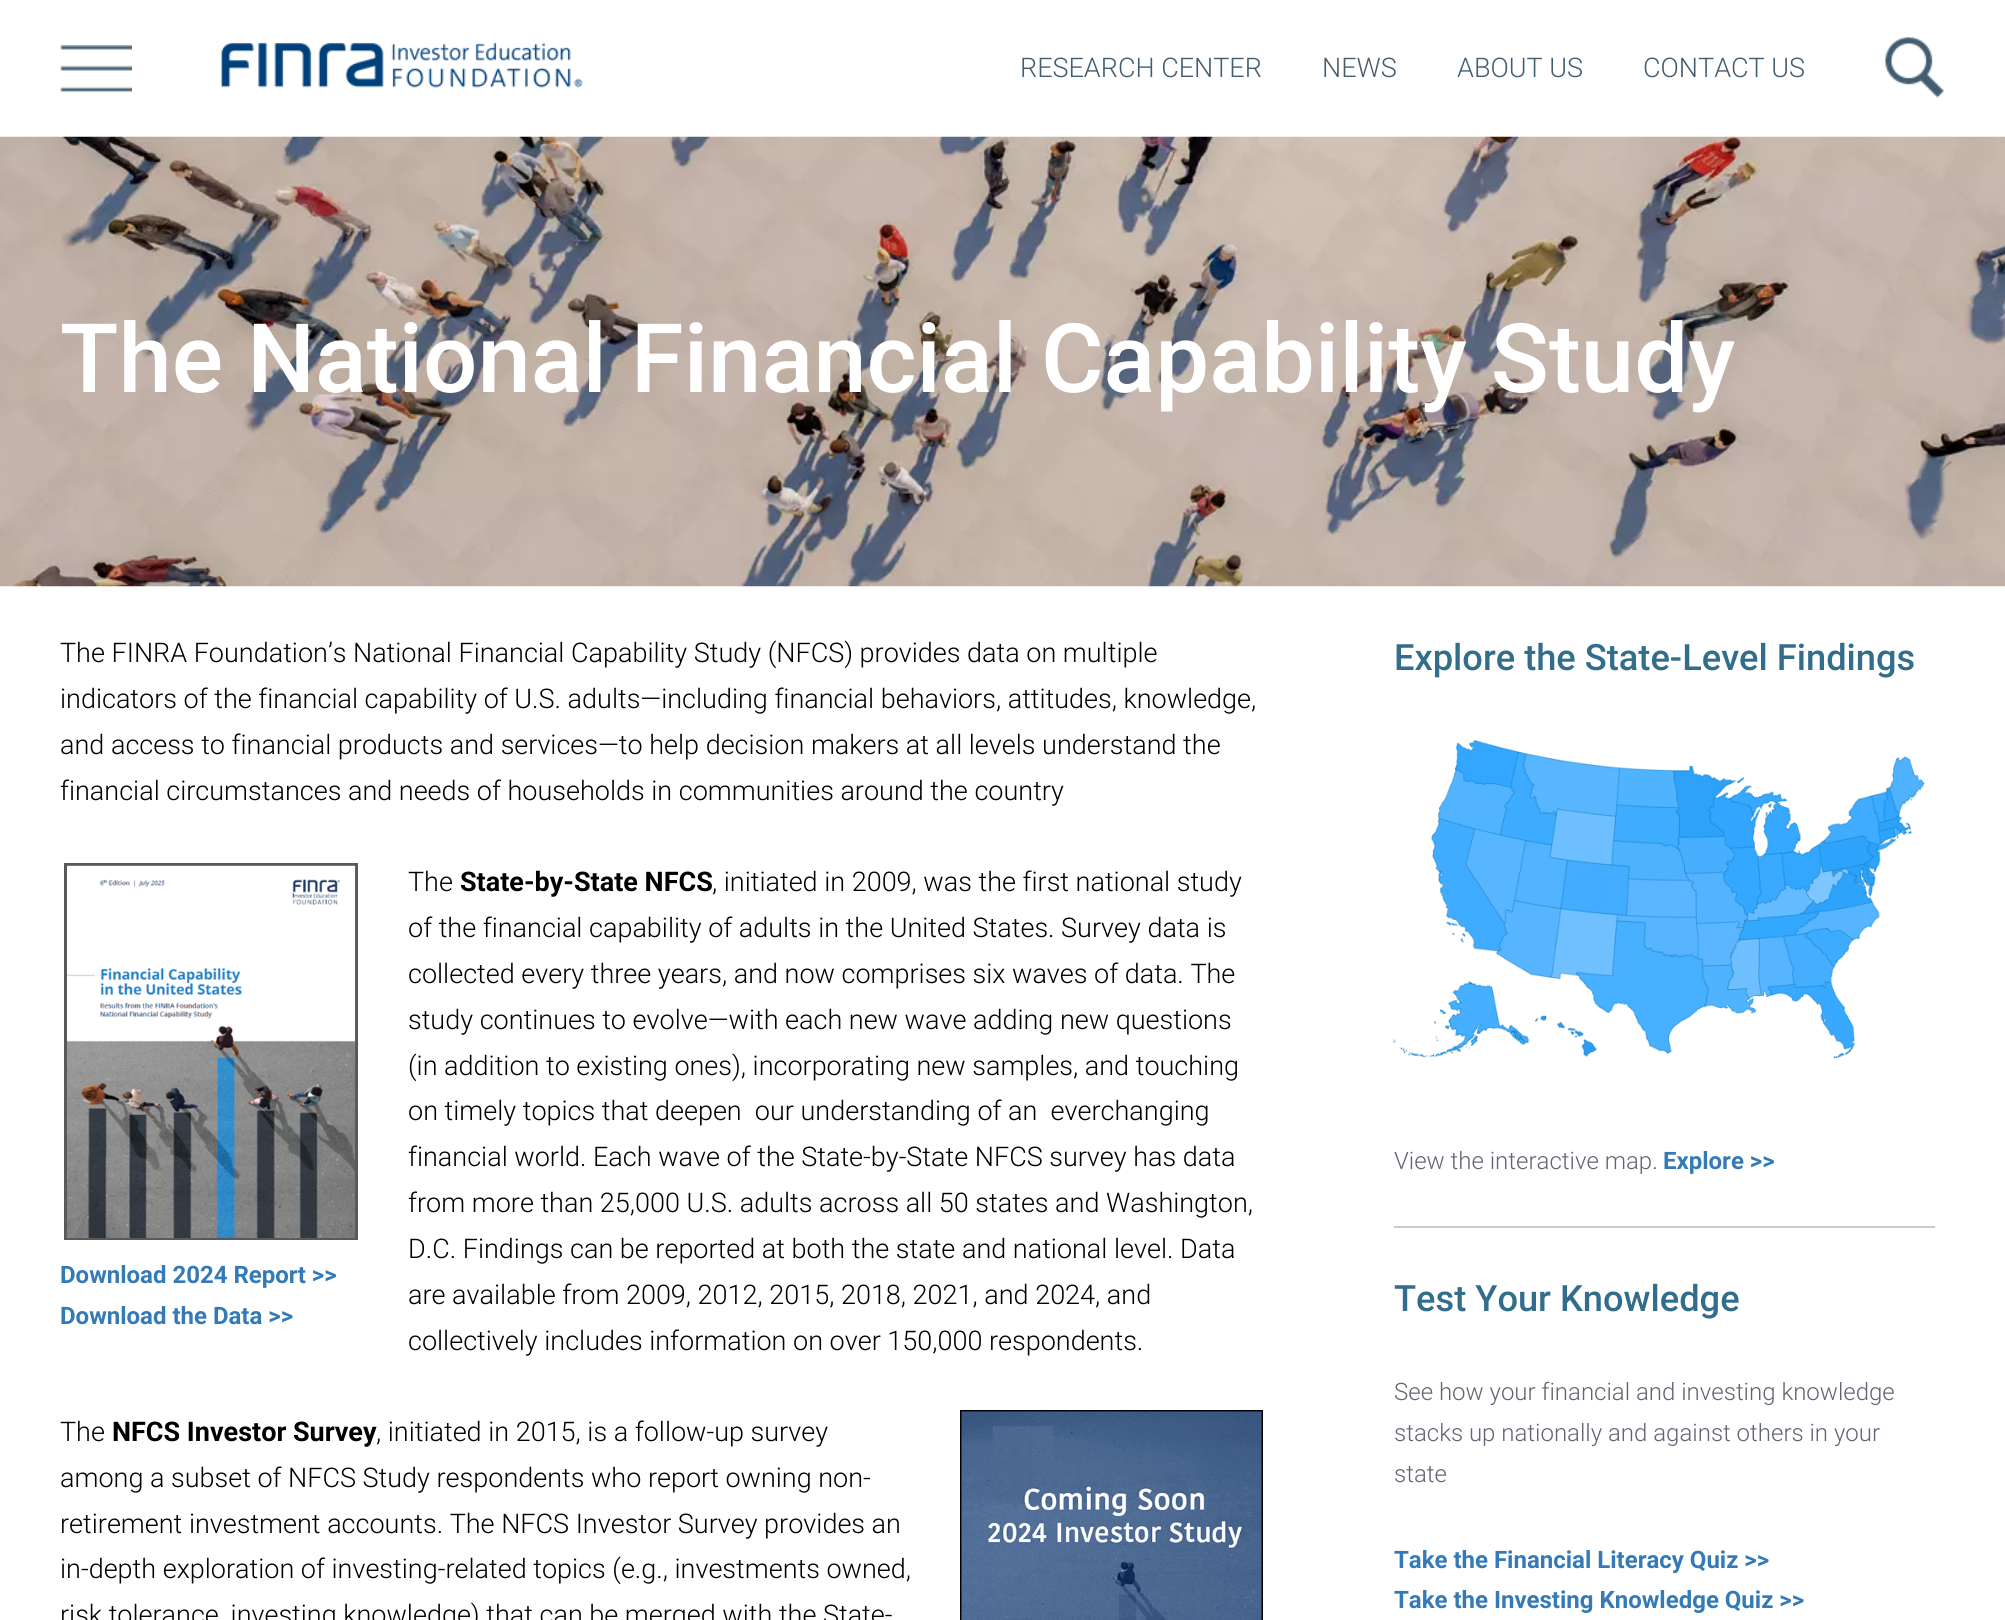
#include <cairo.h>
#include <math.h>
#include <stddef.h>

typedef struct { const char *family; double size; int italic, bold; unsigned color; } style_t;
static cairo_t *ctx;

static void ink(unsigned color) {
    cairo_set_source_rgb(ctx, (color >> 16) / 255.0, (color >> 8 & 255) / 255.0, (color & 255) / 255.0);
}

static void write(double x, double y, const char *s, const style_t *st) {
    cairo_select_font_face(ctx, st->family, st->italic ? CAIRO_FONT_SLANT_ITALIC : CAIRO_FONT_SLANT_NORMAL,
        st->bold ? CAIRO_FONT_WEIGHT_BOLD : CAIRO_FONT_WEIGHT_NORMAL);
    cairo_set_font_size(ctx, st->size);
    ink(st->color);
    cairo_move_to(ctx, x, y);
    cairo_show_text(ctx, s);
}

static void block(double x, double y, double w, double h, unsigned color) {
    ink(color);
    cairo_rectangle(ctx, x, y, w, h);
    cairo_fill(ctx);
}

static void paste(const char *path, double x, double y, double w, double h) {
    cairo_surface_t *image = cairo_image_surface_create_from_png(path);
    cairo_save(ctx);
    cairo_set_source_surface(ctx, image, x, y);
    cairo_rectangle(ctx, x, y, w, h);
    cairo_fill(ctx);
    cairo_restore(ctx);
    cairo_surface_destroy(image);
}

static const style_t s1 = {"Roboto Light", 27, 0, 0, 0x435d70};
static const style_t s2 = {"Roboto Medium", 95.9, 0, 0, 0xffffff};
static const style_t s3 = {"Roboto Light", 27, 0, 0, 0x000000};
static const style_t s4 = {"Roboto", 24, 0, 1, 0x337ab7};
static const style_t s5 = {"Roboto", 27, 0, 1, 0x000000};
static const style_t s6 = {"Roboto Medium", 36.25, 0, 0, 0x326d8b};
static const style_t s7 = {"Roboto Light", 24, 0, 0, 0x616472};

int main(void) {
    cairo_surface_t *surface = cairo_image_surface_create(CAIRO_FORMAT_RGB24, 2005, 1620);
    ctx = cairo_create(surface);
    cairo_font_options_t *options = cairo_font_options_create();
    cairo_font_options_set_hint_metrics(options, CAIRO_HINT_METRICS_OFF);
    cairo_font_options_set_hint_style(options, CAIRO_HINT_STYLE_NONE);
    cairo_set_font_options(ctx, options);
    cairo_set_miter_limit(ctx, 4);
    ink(0xffffff);
    cairo_paint(ctx);
    paste("pic1.png", 60, 45, 72, 47);
    paste("pic2.png", 220, 42, 363, 46);
    write(1020, 77, "RESEARCH CENTER", &s1);
    write(1322, 77, "NEWS", &s1);
    write(1457, 77, "ABOUT US", &s1);
    write(1643, 77, "CONTACT US", &s1);
    paste("pic3.png", 1885, 37, 59, 61);
    paste("pic4.png", 0, 136, 2005, 451);
    write(60, 392, "The National Financial Capability Study", &s2);
    write(60, 662, "The FINRA Foundation’s National Financial Capability Study (NFCS) provides data on multiple", &s3);
    write(60, 708, "indicators of the financial capability of U.S. adults—including financial behaviors, attitudes, knowledge,", &s3);
    write(60, 754, "and access to financial products and services—to help decision makers at all levels understand the", &s3);
    write(60, 800, "financial circumstances and needs of households in communities around the country", &s3);
    paste("pic5.png", 64, 863, 294, 377);
    write(60, 1283, "Download 2024 Report >>", &s4);
    write(60, 1324, "Download the Data >>", &s4);
    write(408, 891, "The", &s3);
    write(460, 891, "State-by-State NFCS", &s5);
    write(712, 891, ", initiated in 2009, was the first national study", &s3);
    write(408, 937, "of the financial capability of adults in the United States. Survey data is", &s3);
    write(408, 983, "collected every three years, and now comprises six waves of data. The", &s3);
    write(408, 1029, "study continues to evolve—with each new wave adding new questions", &s3);
    write(408, 1075, "(in addition to existing ones), incorporating new samples, and touching", &s3);
    write(408, 1120, "on timely topics that deepen  our understanding of an  everchanging", &s3);
    write(408, 1166, "financial world. Each wave of the State-by-State NFCS survey has data", &s3);
    write(408, 1212, "from more than 25,000 U.S. adults across all 50 states and Washington,", &s3);
    write(408, 1258, "D.C. Findings can be reported at both the state and national level. Data", &s3);
    write(408, 1304, "are available from 2009, 2012, 2015, 2018, 2021, and 2024, and", &s3);
    write(408, 1350, "collectively includes information on over 150,000 respondents.", &s3);
    write(60, 1441, "The", &s3);
    write(112, 1441, "NFCS Investor Survey", &s5);
    write(376, 1441, ", initiated in 2015, is a follow-up survey", &s3);
    write(60, 1487, "among a subset of NFCS Study respondents who report owning non-", &s3);
    write(60, 1533, "retirement investment accounts. The NFCS Investor Survey provides an", &s3);
    write(60, 1578, "in-depth exploration of investing-related topics (e.g., investments owned,", &s3);
    write(60, 1624, "risk tolerance, investing knowledge) that can be merged with the State-", &s3);
    cairo_rectangle(ctx, 961, 1411, 301, 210);
    cairo_stroke(ctx);
    paste("pic6.png", 961, 1411, 301, 209);
    write(1394, 670, "Explore the State-Level Findings", &s6);
    paste("pic7.png", 1393, 740, 532, 319);
    write(1394, 1169, "View the interactive map.", &s7);
    write(1663, 1169, "Explore >>", &s4);
    block(1394, 1226, 541, 2, 0xcccccc);
    write(1394, 1311, "Test Your Knowledge", &s6);
    write(1394, 1400, "See how your financial and investing knowledge", &s7);
    write(1394, 1441, "stacks up nationally and against others in your", &s7);
    write(1394, 1482, "state", &s7);
    write(1394, 1568, "Take the Financial Literacy Quiz >>", &s4);
    write(1394, 1608, "Take the Investing Knowledge Quiz >>", &s4);
    cairo_surface_write_to_png(surface, "screenshot.png");
    cairo_font_options_destroy(options);
    cairo_destroy(ctx);
    cairo_surface_destroy(surface);
    return 0;
}
